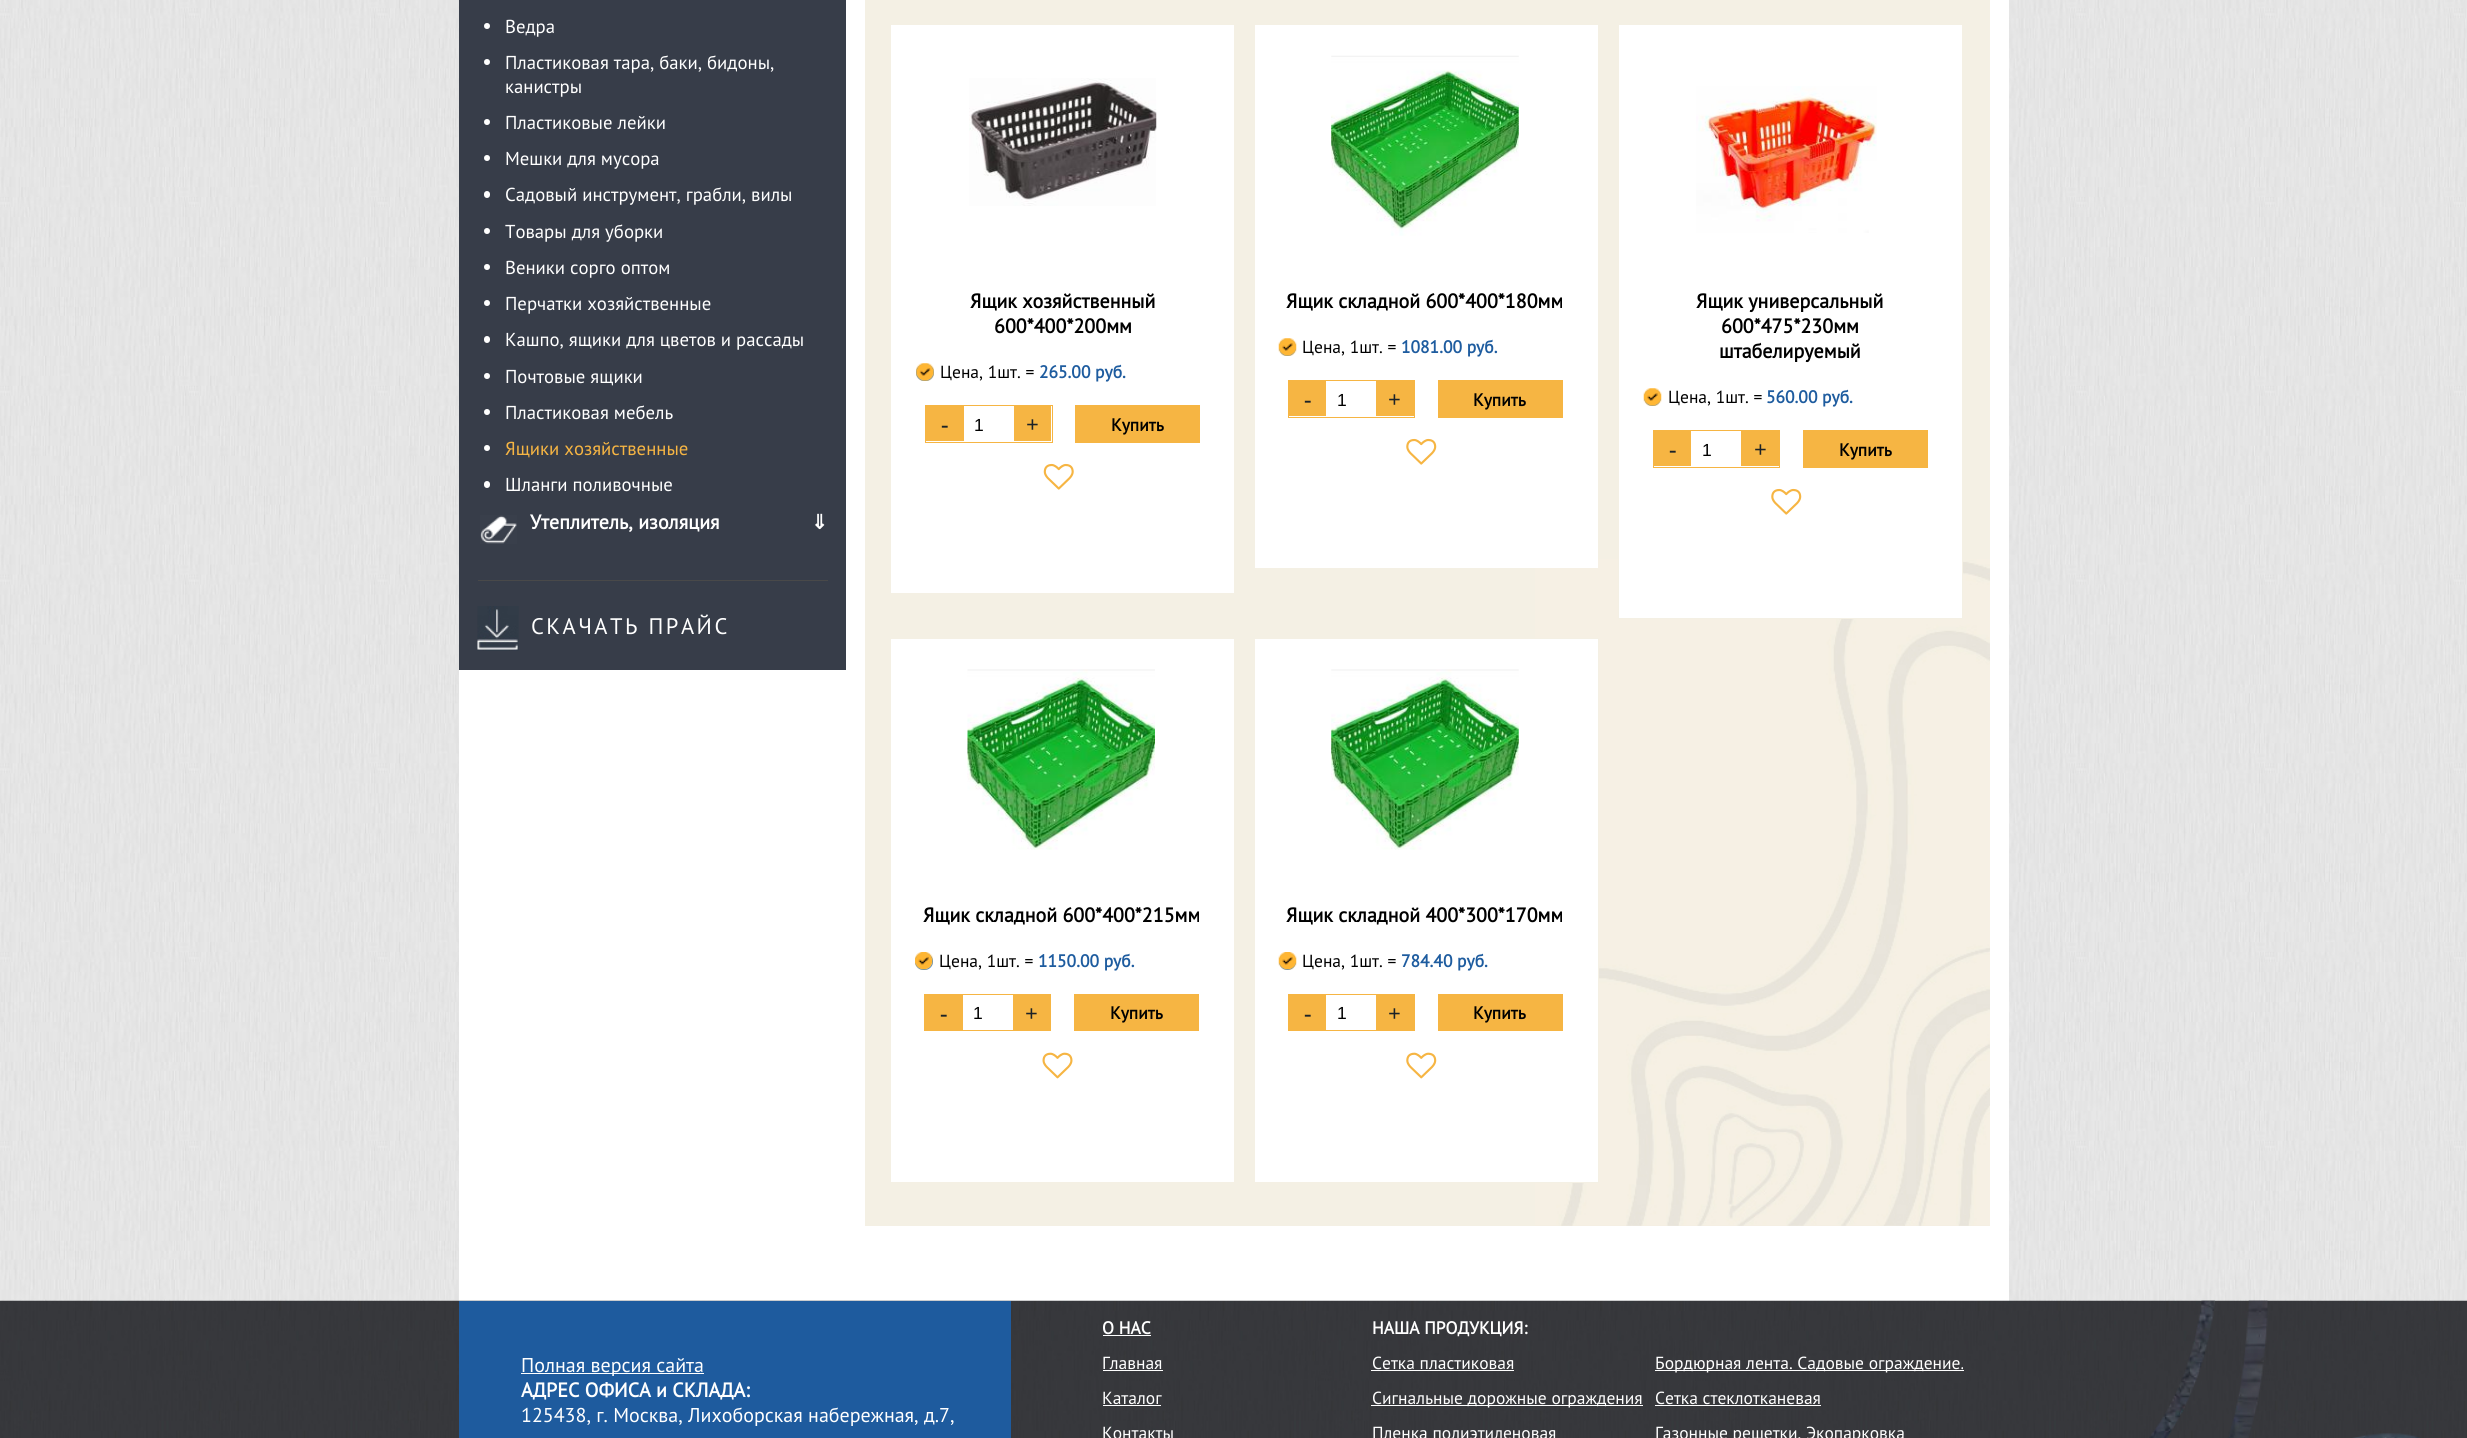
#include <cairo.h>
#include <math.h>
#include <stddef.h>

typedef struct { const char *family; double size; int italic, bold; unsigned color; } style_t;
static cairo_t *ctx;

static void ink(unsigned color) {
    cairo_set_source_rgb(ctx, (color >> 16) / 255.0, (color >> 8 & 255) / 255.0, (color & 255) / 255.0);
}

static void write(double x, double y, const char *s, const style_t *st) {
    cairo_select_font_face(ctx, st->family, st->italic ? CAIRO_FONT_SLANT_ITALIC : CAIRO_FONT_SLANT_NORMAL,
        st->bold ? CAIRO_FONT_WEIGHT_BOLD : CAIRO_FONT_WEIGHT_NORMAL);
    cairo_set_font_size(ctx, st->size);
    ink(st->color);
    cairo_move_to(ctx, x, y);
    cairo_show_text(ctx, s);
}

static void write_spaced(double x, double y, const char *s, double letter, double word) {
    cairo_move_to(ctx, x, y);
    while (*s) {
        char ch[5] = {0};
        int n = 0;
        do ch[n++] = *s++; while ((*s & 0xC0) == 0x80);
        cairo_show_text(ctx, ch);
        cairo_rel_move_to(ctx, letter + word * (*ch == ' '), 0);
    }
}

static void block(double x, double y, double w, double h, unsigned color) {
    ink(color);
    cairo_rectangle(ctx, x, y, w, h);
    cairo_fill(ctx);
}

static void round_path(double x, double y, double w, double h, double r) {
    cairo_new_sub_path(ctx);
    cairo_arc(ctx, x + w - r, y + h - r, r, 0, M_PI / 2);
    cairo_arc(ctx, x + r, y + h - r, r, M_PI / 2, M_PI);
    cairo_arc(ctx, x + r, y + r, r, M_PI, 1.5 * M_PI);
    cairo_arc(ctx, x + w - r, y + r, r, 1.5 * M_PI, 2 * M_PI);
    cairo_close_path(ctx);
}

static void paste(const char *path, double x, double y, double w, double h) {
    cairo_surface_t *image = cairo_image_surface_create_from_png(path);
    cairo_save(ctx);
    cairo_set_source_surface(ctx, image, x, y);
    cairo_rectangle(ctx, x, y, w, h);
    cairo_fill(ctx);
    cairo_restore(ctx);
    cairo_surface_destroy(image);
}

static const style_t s1 = {"PT Sans", 18.75, 0, 0, 0xffffff};
static const style_t s2 = {"PT Sans", 18.75, 0, 0, 0xf6b543};
static const style_t s3 = {"PT Sans", 20, 0, 1, 0xffffff};
static const style_t s4 = {"DejaVu Sans", 20, 0, 1, 0xffffff};
static const style_t s5 = {"PT Sans", 20, 0, 1, 0x000000};
static const style_t s6 = {"PT Sans", 17.5, 0, 0, 0x000000};
static const style_t s7 = {"PT Sans", 17.5, 0, 1, 0x1e5c9f};
static const style_t s8 = {"Liberation Serif", 22.5, 0, 1, 0x1c2227};
static const style_t s9 = {"Liberation Sans", 17.5, 0, 0, 0x000000};
static const style_t s10 = {"PT Sans", 17.5, 0, 1, 0x000000};
static const style_t s11 = {"PT Sans", 20, 0, 0, 0xffffff};
static const style_t s12 = {"PT Sans", 17.5, 0, 1, 0xffffff};
static const style_t s13 = {"PT Sans", 17.5, 0, 0, 0xffffff};

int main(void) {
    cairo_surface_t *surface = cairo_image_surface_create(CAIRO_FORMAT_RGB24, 2467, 1438);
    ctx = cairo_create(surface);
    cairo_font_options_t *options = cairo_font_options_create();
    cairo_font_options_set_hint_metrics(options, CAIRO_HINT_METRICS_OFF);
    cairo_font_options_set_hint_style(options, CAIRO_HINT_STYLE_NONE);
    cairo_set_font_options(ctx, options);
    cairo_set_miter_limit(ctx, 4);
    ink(0xffffff);
    cairo_paint(ctx);
    paste("pic1.png", 0, 0, 2467, 1301);
    block(459, 0, 1550, 1301, 0xffffff);
    block(459, 0, 387, 670, 0x373d49);
    ink(0xffffff);
    cairo_arc(ctx, 487, 26, 3, 0, 2 * M_PI);
    cairo_fill(ctx);
    write(505, 33, "Ведра", &s1);
    cairo_new_path(ctx);
    cairo_arc(ctx, 487, 62, 3, 0, 2 * M_PI);
    cairo_fill(ctx);
    write(505, 69, "Пластиковая тара, баки, бидоны,", &s1);
    write(505, 93, "канистры", &s1);
    cairo_new_path(ctx);
    cairo_arc(ctx, 487, 122, 3, 0, 2 * M_PI);
    cairo_fill(ctx);
    write(505, 129, "Пластиковые лейки", &s1);
    cairo_new_path(ctx);
    cairo_arc(ctx, 487, 158, 3, 0, 2 * M_PI);
    cairo_fill(ctx);
    write(505, 165, "Мешки для мусора", &s1);
    round_path(484, 191, 6, 7, 3);
    cairo_fill(ctx);
    write(505, 201, "Садовый инструмент, грабли, вилы", &s1);
    cairo_new_path(ctx);
    cairo_arc(ctx, 487, 231, 3, 0, 2 * M_PI);
    cairo_fill(ctx);
    write(505, 238, "Товары для уборки", &s1);
    cairo_new_path(ctx);
    cairo_arc(ctx, 487, 267, 3, 0, 2 * M_PI);
    cairo_fill(ctx);
    write(505, 274, "Веники сорго оптом", &s1);
    cairo_new_path(ctx);
    cairo_arc(ctx, 487, 303, 3, 0, 2 * M_PI);
    cairo_fill(ctx);
    write(505, 310, "Перчатки хозяйственные", &s1);
    round_path(484, 336, 6, 7, 3);
    cairo_fill(ctx);
    write(505, 346, "Кашпо, ящики для цветов и рассады", &s1);
    cairo_new_path(ctx);
    cairo_arc(ctx, 487, 376, 3, 0, 2 * M_PI);
    cairo_fill(ctx);
    write(505, 383, "Почтовые ящики", &s1);
    cairo_new_path(ctx);
    cairo_arc(ctx, 487, 412, 3, 0, 2 * M_PI);
    cairo_fill(ctx);
    write(505, 419, "Пластиковая мебель", &s1);
    cairo_new_path(ctx);
    cairo_arc(ctx, 487, 448, 3, 0, 2 * M_PI);
    cairo_fill(ctx);
    write(505, 455, "Ящики хозяйственные", &s2);
    ink(0xffffff);
    round_path(484, 481, 6, 7, 3);
    cairo_fill(ctx);
    write(505, 491, "Шланги поливочные", &s1);
    paste("pic2.png", 480, 515, 37, 29);
    write(530, 529, "Утеплитель, изоляция", &s3);
    write(811, 529, "⇓", &s4);
    block(478, 580, 350, 1, 0x494949);
    paste("pic3.png", 477, 606, 42, 45);
    cairo_select_font_face(ctx, "PT Sans", CAIRO_FONT_SLANT_NORMAL, CAIRO_FONT_WEIGHT_NORMAL);
    cairo_set_font_size(ctx, 22.5);
    ink(0xffffff);
    write_spaced(531, 634, "СКАЧАТЬ ПРАЙС", 2.5, 0);
    block(865, 0, 1125, 1226, 0xf4f0e4);
    paste("pic4.png", 1535, 559, 455, 667);
    block(891, 25, 343, 568, 0xffffff);
    paste("pic5.png", 969, 78, 188, 128);
    write(970, 308, "Ящик хозяйственный", &s5);
    write(994, 333, "600*400*200мм", &s5);
    round_path(916.5, 364.5, 17, 16, 8);
    ink(0x0075ff);
    cairo_set_line_width(ctx, 1);
    cairo_stroke(ctx);
    paste("pic6.png", 916, 363, 18, 18);
    write(940, 378, "Цена, 1шт. =", &s6);
    write(1039, 378, "265.00 руб.", &s7);
    cairo_rectangle(ctx, 925.5, 405.5, 127, 37);
    ink(0xf6b543);
    cairo_stroke(ctx);
    block(926, 406, 38, 35, 0xf6b543);
    write(941, 432, "-", &s8);
    write(974, 431, "1", &s9);
    block(1014, 406, 37, 35, 0xf6b543);
    write(1026, 432, "+", &s8);
    block(1075, 405, 125, 38, 0xf6b543);
    write(1111, 431, "Купить", &s10);
    paste("pic7.png", 1043, 463, 31, 27);
    block(1255, 25, 343, 543, 0xffffff);
    paste("pic8.png", 1331, 55, 188, 181);
    write(1286, 308, "Ящик складной 600*400*180мм", &s5);
    cairo_new_path(ctx);
    cairo_arc(ctx, 1287.5, 347.5, 8, 0, 2 * M_PI);
    ink(0x0075ff);
    cairo_stroke(ctx);
    paste("pic9.png", 1278, 338, 19, 18);
    write(1302, 353, "Цена, 1шт. =", &s6);
    write(1401, 353, "1081.00 руб.", &s7);
    cairo_rectangle(ctx, 1288.5, 380.5, 126, 37);
    ink(0xf6b543);
    cairo_stroke(ctx);
    block(1289, 381, 37, 35, 0xf6b543);
    write(1304, 407, "-", &s8);
    write(1337, 406, "1", &s9);
    block(1376, 381, 38, 35, 0xf6b543);
    write(1388, 407, "+", &s8);
    block(1438, 380, 125, 38, 0xf6b543);
    write(1473, 406, "Купить", &s10);
    paste("pic10.png", 1406, 438, 31, 27);
    ink(0xffffff);
    cairo_rectangle(ctx, 1618.5, 24.5, 344, 594);
    cairo_fill_preserve(ctx);
    ink(0xf4f0e4);
    cairo_stroke(ctx);
    paste("pic11.png", 1696, 86, 181, 147);
    write(1696, 308, "Ящик универсальный", &s5);
    write(1721, 333, "600*475*230мм", &s5);
    write(1719, 358, "штабелируемый", &s5);
    cairo_new_path(ctx);
    cairo_arc(ctx, 1652.5, 397.5, 8, 0, 2 * M_PI);
    ink(0x0075ff);
    cairo_stroke(ctx);
    paste("pic12.png", 1643, 388, 19, 18);
    write(1668, 403, "Цена, 1шт. =", &s6);
    write(1766, 403, "560.00 руб.", &s7);
    cairo_rectangle(ctx, 1653.5, 430.5, 126, 37);
    ink(0xf6b543);
    cairo_stroke(ctx);
    block(1654, 431, 37, 35, 0xf6b543);
    write(1669, 457, "-", &s8);
    write(1702, 456, "1", &s9);
    block(1741, 431, 38, 35, 0xf6b543);
    write(1754, 457, "+", &s8);
    block(1803, 430, 125, 38, 0xf6b543);
    write(1839, 456, "Купить", &s10);
    paste("pic10.png", 1771, 488, 31, 27);
    block(891, 639, 343, 543, 0xffffff);
    paste("pic13.png", 967, 669, 188, 181);
    write(923, 922, "Ящик складной 600*400*215мм", &s5);
    round_path(915.5, 953.5, 17, 16, 8);
    ink(0x0075ff);
    cairo_stroke(ctx);
    paste("pic14.png", 915, 952, 18, 18);
    write(939, 967, "Цена, 1шт. =", &s6);
    write(1038, 967, "1150.00 руб.", &s7);
    cairo_rectangle(ctx, 924.5, 994.5, 126, 36);
    ink(0xf6b543);
    cairo_stroke(ctx);
    block(925, 995, 38, 35, 0xf6b543);
    write(940, 1021, "-", &s8);
    write(973, 1019, "1", &s9);
    block(1013, 995, 37, 35, 0xf6b543);
    write(1025, 1021, "+", &s8);
    block(1074, 994, 125, 37, 0xf6b543);
    write(1110, 1019, "Купить", &s10);
    paste("pic15.png", 1042, 1052, 31, 27);
    ink(0xffffff);
    cairo_rectangle(ctx, 1254.5, 638.5, 344, 544);
    cairo_fill_preserve(ctx);
    ink(0xf4f0e4);
    cairo_stroke(ctx);
    paste("pic16.png", 1331, 669, 188, 181);
    write(1286, 922, "Ящик складной 400*300*170мм", &s5);
    cairo_new_path(ctx);
    cairo_arc(ctx, 1287.5, 961.5, 8, 0, 2 * M_PI);
    ink(0x0075ff);
    cairo_stroke(ctx);
    paste("pic17.png", 1278, 952, 19, 18);
    write(1302, 967, "Цена, 1шт. =", &s6);
    write(1401, 967, "784.40 руб.", &s7);
    cairo_rectangle(ctx, 1288.5, 994.5, 126, 36);
    ink(0xf6b543);
    cairo_stroke(ctx);
    block(1289, 995, 37, 35, 0xf6b543);
    write(1304, 1021, "-", &s8);
    write(1337, 1019, "1", &s9);
    block(1376, 995, 38, 35, 0xf6b543);
    write(1388, 1021, "+", &s8);
    block(1438, 994, 125, 37, 0xf6b543);
    write(1473, 1019, "Купить", &s10);
    paste("pic18.png", 1406, 1052, 31, 27);
    paste("pic19.png", 0, 1300, 2467, 138);
    paste("pic20.png", 2149, 1300, 272, 138);
    block(459, 1301, 552, 137, 0x1e5b9e);
    block(521, 1373, 183, 1, 0xffffff);
    write(521, 1372, "Полная версия сайта", &s11);
    write(521, 1397, "АДРЕС ОФИСА и СКЛАДА:", &s3);
    write(521, 1422, "125438, г. Москва, Лихоборская набережная, д.7,", &s11);
    write(1102, 1334, "О НАС", &s12);
    block(1103, 1335, 48, 1, 0xffffff);
    write(1102, 1369, "Главная", &s13);
    block(1103, 1370, 60, 1, 0xffffff);
    write(1102, 1404, "Каталог", &s13);
    block(1103, 1405, 58, 1, 0xffffff);
    write(1102, 1439, "Контакты", &s13);
    write(1372, 1334, "НАША ПРОДУКЦИЯ:", &s12);
    write(1372, 1369, "Сетка пластиковая", &s13);
    block(1371, 1370, 143, 1, 0xffffff);
    block(1655, 1370, 309, 1, 0xffffff);
    write(1655, 1369, "Бордюрная лента. Садовые ограждение.", &s13);
    block(1371, 1405, 272, 1, 0xffffff);
    write(1372, 1404, "Сигнальные дорожные ограждения", &s13);
    write(1655, 1404, "Сетка стеклотканевая", &s13);
    block(1655, 1405, 166, 1, 0xffffff);
    write(1372, 1439, "Пленка полиэтиленовая", &s13);
    write(1655, 1439, "Газонные решетки. Экопарковка", &s13);
    cairo_surface_write_to_png(surface, "screenshot.png");
    cairo_font_options_destroy(options);
    cairo_destroy(ctx);
    cairo_surface_destroy(surface);
    return 0;
}
